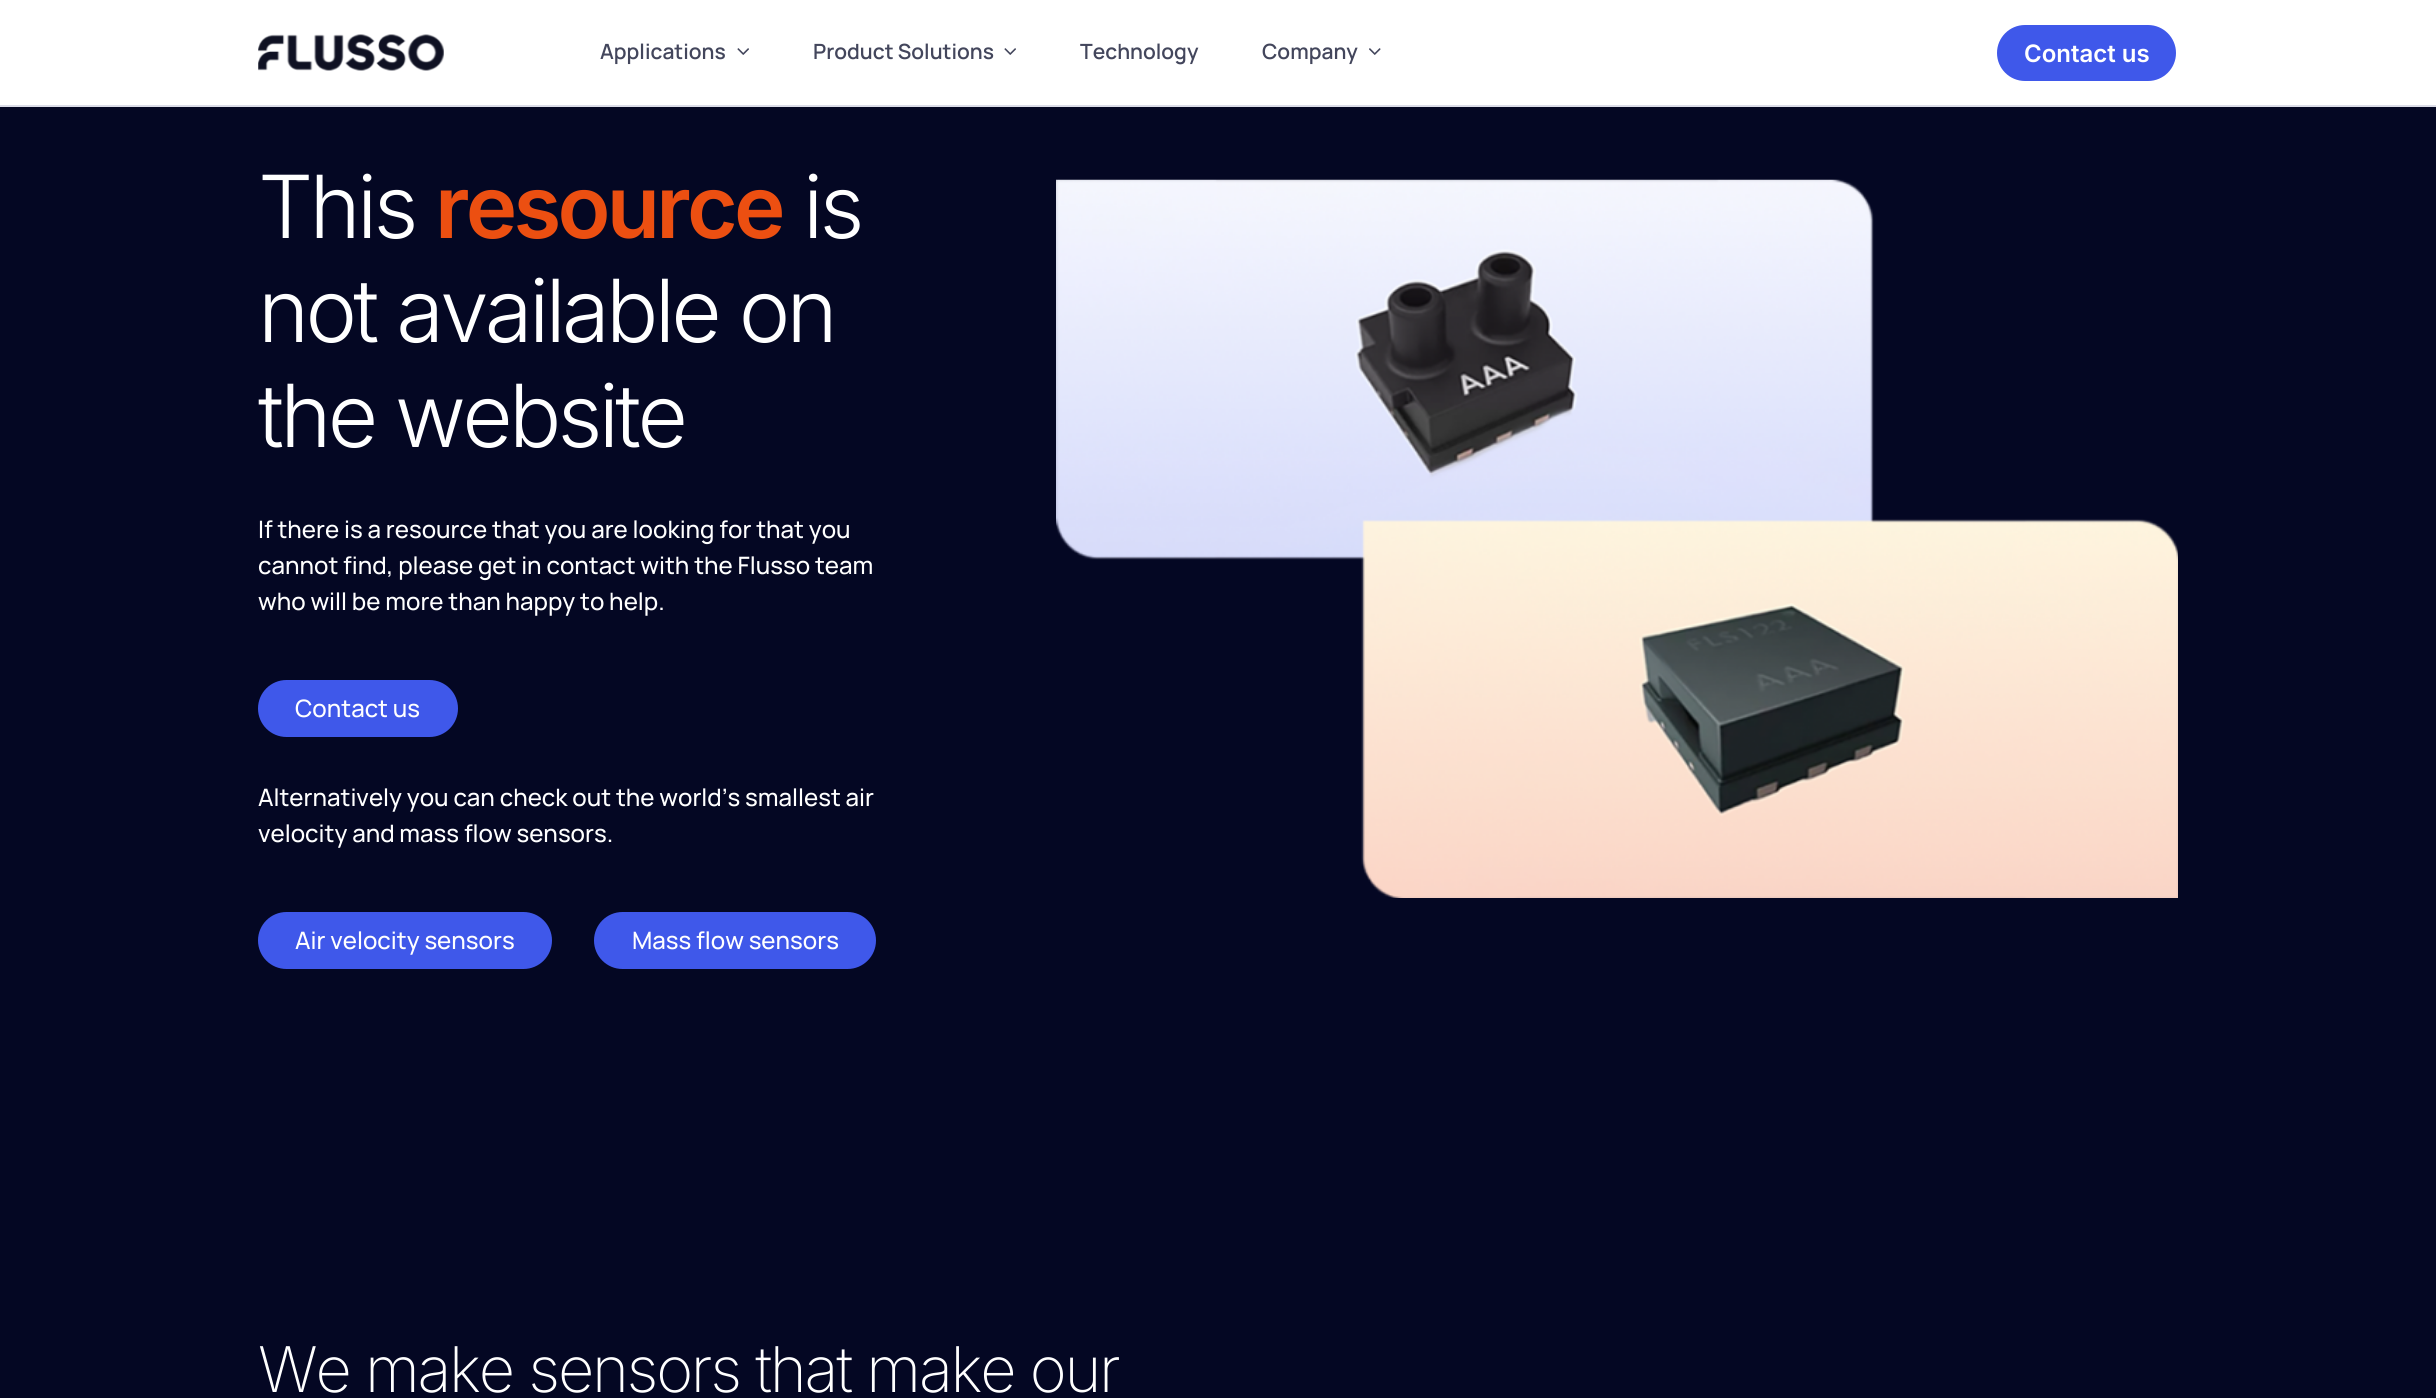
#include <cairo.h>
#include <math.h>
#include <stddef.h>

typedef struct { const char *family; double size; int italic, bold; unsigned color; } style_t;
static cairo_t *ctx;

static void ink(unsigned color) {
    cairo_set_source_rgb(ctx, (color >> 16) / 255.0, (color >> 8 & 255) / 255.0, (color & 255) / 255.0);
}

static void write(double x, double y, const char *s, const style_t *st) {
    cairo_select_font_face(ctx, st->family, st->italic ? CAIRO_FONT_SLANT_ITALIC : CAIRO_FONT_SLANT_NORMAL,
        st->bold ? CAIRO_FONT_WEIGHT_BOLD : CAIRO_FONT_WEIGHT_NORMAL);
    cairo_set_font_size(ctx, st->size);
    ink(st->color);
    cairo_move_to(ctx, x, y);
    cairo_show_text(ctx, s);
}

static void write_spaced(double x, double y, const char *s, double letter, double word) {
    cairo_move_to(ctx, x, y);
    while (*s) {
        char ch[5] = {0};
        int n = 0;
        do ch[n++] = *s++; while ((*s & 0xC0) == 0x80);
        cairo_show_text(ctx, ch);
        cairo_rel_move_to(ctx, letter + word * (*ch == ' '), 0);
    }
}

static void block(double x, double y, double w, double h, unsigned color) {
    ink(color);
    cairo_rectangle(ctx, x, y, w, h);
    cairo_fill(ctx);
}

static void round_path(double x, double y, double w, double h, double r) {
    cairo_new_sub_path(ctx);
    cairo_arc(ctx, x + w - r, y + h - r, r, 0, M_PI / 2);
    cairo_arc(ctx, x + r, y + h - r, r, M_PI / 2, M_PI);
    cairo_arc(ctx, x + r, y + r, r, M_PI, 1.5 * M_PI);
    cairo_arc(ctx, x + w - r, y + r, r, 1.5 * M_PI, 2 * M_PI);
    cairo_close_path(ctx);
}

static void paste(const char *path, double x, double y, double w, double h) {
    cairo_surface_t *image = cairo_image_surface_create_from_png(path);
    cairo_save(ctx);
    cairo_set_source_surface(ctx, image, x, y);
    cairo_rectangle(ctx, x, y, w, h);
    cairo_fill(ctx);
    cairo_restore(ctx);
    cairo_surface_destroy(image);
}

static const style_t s1 = {"Manrope SemiBold", 21, 0, 0, 0x43465c};
static const style_t s2 = {"Inter SemiBold", 24, 0, 0, 0xffffff};
static const style_t s3 = {"Manrope Medium", 24, 0, 0, 0xffffff};

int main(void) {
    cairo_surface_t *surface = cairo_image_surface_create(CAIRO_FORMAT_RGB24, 2436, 1398);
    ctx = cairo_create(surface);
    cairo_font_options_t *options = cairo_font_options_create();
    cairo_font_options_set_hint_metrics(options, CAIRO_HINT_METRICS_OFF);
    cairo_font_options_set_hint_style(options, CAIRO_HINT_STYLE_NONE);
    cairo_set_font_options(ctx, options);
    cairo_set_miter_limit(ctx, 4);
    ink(0x040723);
    cairo_paint(ctx);
    block(0, 0, 2436, 105, 0xffffff);
    block(0, 105, 2436, 2, 0xdcdde8);
    paste("pic1.png", 258, 34, 186, 37);
    write(600, 59, "Applications", &s1);
    paste("pic2.png", 737, 48, 12, 7);
    write(813, 59, "Product Solutions", &s1);
    paste("pic2.png", 1004, 48, 12, 7);
    write(1080, 59, "Technology", &s1);
    write(1262, 59, "Company", &s1);
    paste("pic3.png", 1369, 48, 12, 7);
    ink(0x3f58ea);
    round_path(1996, 24, 181, 58, 29);
    cairo_fill_preserve(ctx);
    ink(0xffffff);
    cairo_stroke(ctx);
    write(2024, 62, "Contact us", &s2);
    cairo_select_font_face(ctx, "Inter Light", CAIRO_FONT_SLANT_NORMAL, CAIRO_FONT_WEIGHT_NORMAL);
    cairo_set_font_size(ctx, 87);
    write_spaced(258, 238, "This", -3.75, 0);
    cairo_select_font_face(ctx, "Inter SemiBold", CAIRO_FONT_SLANT_NORMAL, CAIRO_FONT_WEIGHT_NORMAL);
    ink(0xec4f11);
    write_spaced(435, 238, "resource", -3.75, 0);
    cairo_select_font_face(ctx, "Inter Light", CAIRO_FONT_SLANT_NORMAL, CAIRO_FONT_WEIGHT_NORMAL);
    ink(0xffffff);
    write_spaced(803, 238, "is", -3.75, 0);
    write_spaced(258, 342, "not available on", -3.75, 0);
    write_spaced(258, 447, "the website", -3.75, 0);
    write(258, 538, "If there is a resource that you are looking for that you", &s3);
    write(258, 574, "cannot find, please get in contact with the Flusso team", &s3);
    write(258, 610, "who will be more than happy to help.", &s3);
    ink(0x3f58ea);
    round_path(258, 680, 200, 57, 28.5);
    cairo_fill(ctx);
    write(295, 717, "Contact us", &s3);
    write(258, 806, "Alternatively you can check out the world’s smallest air", &s3);
    write(258, 842, "velocity and mass flow sensors.", &s3);
    ink(0x3f58ea);
    round_path(258, 912, 294, 57, 28.5);
    cairo_fill(ctx);
    write(295, 949, "Air velocity sensors", &s3);
    ink(0x3f58ea);
    round_path(594, 912, 282, 57, 28.5);
    cairo_fill(ctx);
    write(632, 949, "Mass flow sensors", &s3);
    paste("pic4.png", 1056, 179, 1122, 719);
    cairo_select_font_face(ctx, "Inter ExtraLight", CAIRO_FONT_SLANT_NORMAL, CAIRO_FONT_WEIGHT_NORMAL);
    cairo_set_font_size(ctx, 63);
    write_spaced(258, 1392, "We make sensors that make our", -2.25, 0);
    cairo_surface_write_to_png(surface, "screenshot.png");
    cairo_font_options_destroy(options);
    cairo_destroy(ctx);
    cairo_surface_destroy(surface);
    return 0;
}
